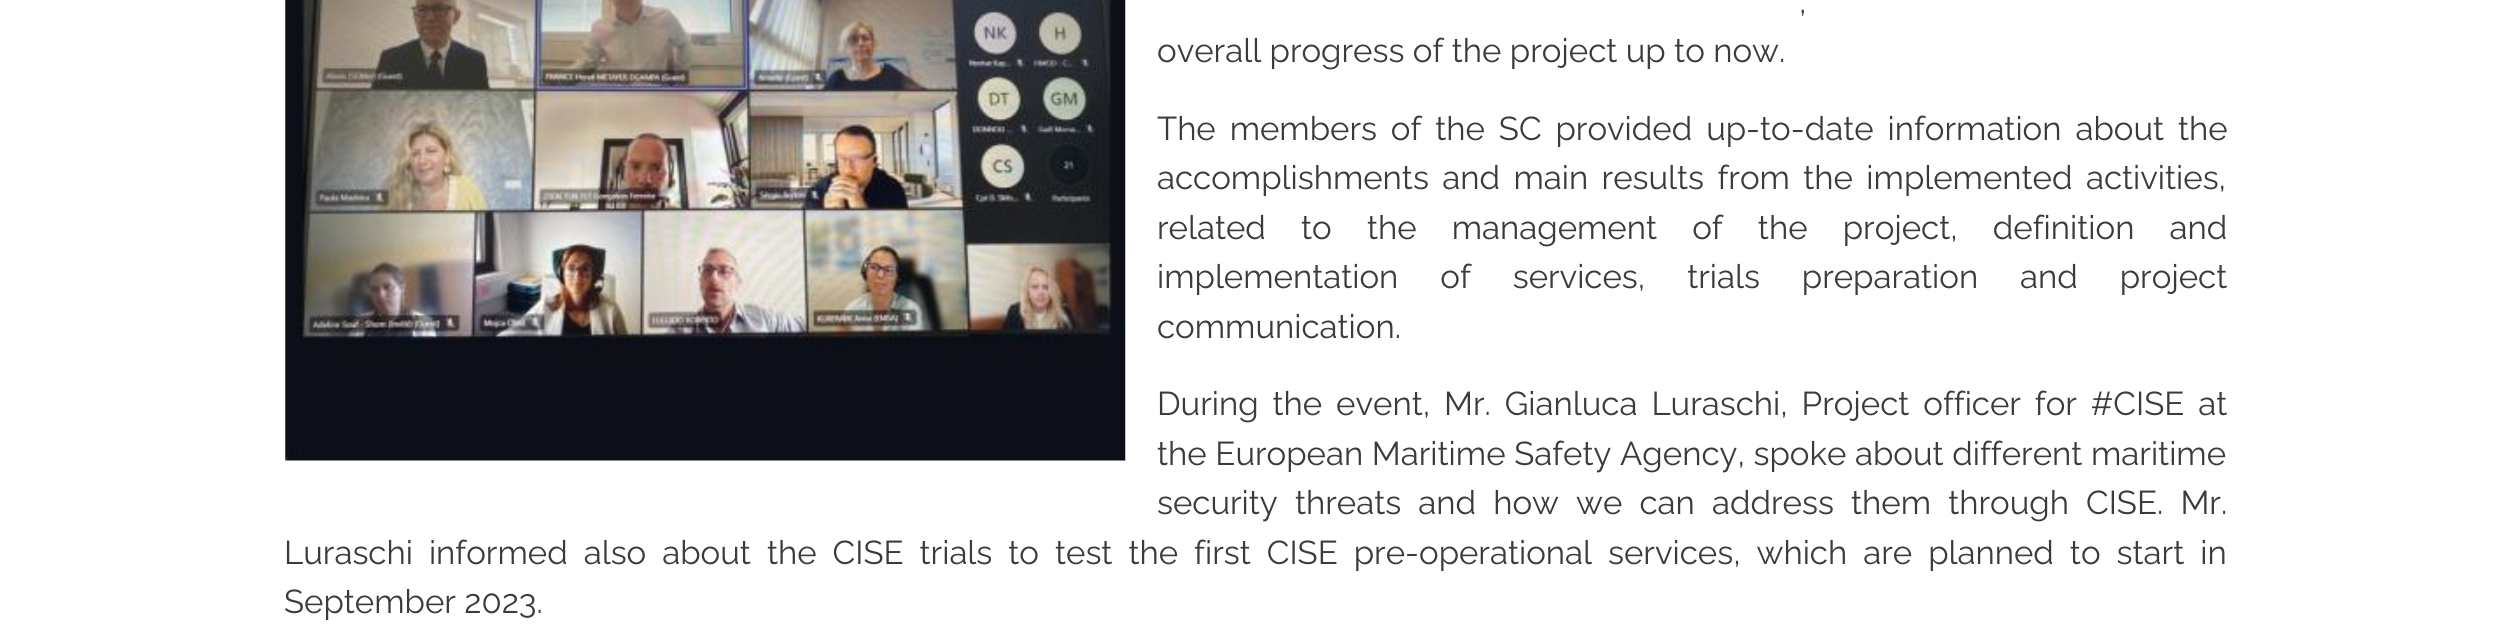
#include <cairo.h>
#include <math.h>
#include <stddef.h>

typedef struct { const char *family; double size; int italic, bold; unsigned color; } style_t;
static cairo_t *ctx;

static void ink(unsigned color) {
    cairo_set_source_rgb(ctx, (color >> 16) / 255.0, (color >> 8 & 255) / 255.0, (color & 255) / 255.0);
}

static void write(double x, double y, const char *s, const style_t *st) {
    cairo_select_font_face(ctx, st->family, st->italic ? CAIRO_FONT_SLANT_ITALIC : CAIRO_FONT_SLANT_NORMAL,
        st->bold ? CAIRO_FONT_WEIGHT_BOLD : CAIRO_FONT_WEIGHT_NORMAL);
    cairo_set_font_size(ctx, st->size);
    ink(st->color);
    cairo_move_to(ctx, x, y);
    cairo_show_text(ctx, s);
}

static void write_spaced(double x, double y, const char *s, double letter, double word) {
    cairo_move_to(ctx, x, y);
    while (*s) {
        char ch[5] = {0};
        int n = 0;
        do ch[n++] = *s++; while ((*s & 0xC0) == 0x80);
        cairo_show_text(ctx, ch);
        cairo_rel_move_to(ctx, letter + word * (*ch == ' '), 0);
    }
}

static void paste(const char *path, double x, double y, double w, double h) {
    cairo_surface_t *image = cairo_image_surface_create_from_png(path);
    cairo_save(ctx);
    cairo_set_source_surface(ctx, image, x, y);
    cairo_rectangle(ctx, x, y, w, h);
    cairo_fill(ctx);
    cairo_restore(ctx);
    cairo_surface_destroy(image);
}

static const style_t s1 = {"Raleway", 33, 0, 0, 0x3b3b3b};

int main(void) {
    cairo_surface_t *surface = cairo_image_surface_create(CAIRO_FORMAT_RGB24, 2511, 630);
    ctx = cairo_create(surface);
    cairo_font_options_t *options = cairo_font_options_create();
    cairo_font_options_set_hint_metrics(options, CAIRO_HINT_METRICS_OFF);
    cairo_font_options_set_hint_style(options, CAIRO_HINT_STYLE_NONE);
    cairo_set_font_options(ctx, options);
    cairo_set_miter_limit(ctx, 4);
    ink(0xffffff);
    cairo_paint(ctx);
    paste("pic1.png", 285, 0, 841, 461);
    cairo_select_font_face(ctx, "Raleway", CAIRO_FONT_SLANT_NORMAL, CAIRO_FONT_WEIGHT_NORMAL);
    cairo_set_font_size(ctx, 33);
    ink(0x3b3b3b);
    write_spaced(1799, 13, ",", 0, 5);
    write(1157, 62, "overall progress of the project up to now.", &s1);
    write_spaced(1157, 140, "The members of the SC provided up-to-date information about the", 0, 5.5);
    write_spaced(1157, 189, "accomplishments and main results from the implemented activities,", 0, 5);
    write_spaced(1157, 239, "related to the management of the project, definition and", 0, 26.75);
    write_spaced(1157, 288, "implementation of services, trials preparation and project", 0, 33.5);
    write(1157, 338, "communication.", &s1);
    write_spaced(1157, 415, "During the event, Mr. Gianluca Luraschi, Project officer for #CISE at", 0, 5.5);
    write_spaced(1157, 465, "the European Maritime Safety Agency, spoke about different maritime", 0, 0.25);
    write_spaced(1157, 514, "security threats and how we can address them through CISE. Mr.", 0, 8.75);
    write_spaced(284, 564, "Luraschi informed also about the CISE trials to test the first CISE pre-operational services, which are planned to start in", 0, 7.6);
    write(284, 613, "September 2023.", &s1);
    cairo_surface_write_to_png(surface, "screenshot.png");
    cairo_font_options_destroy(options);
    cairo_destroy(ctx);
    cairo_surface_destroy(surface);
    return 0;
}
